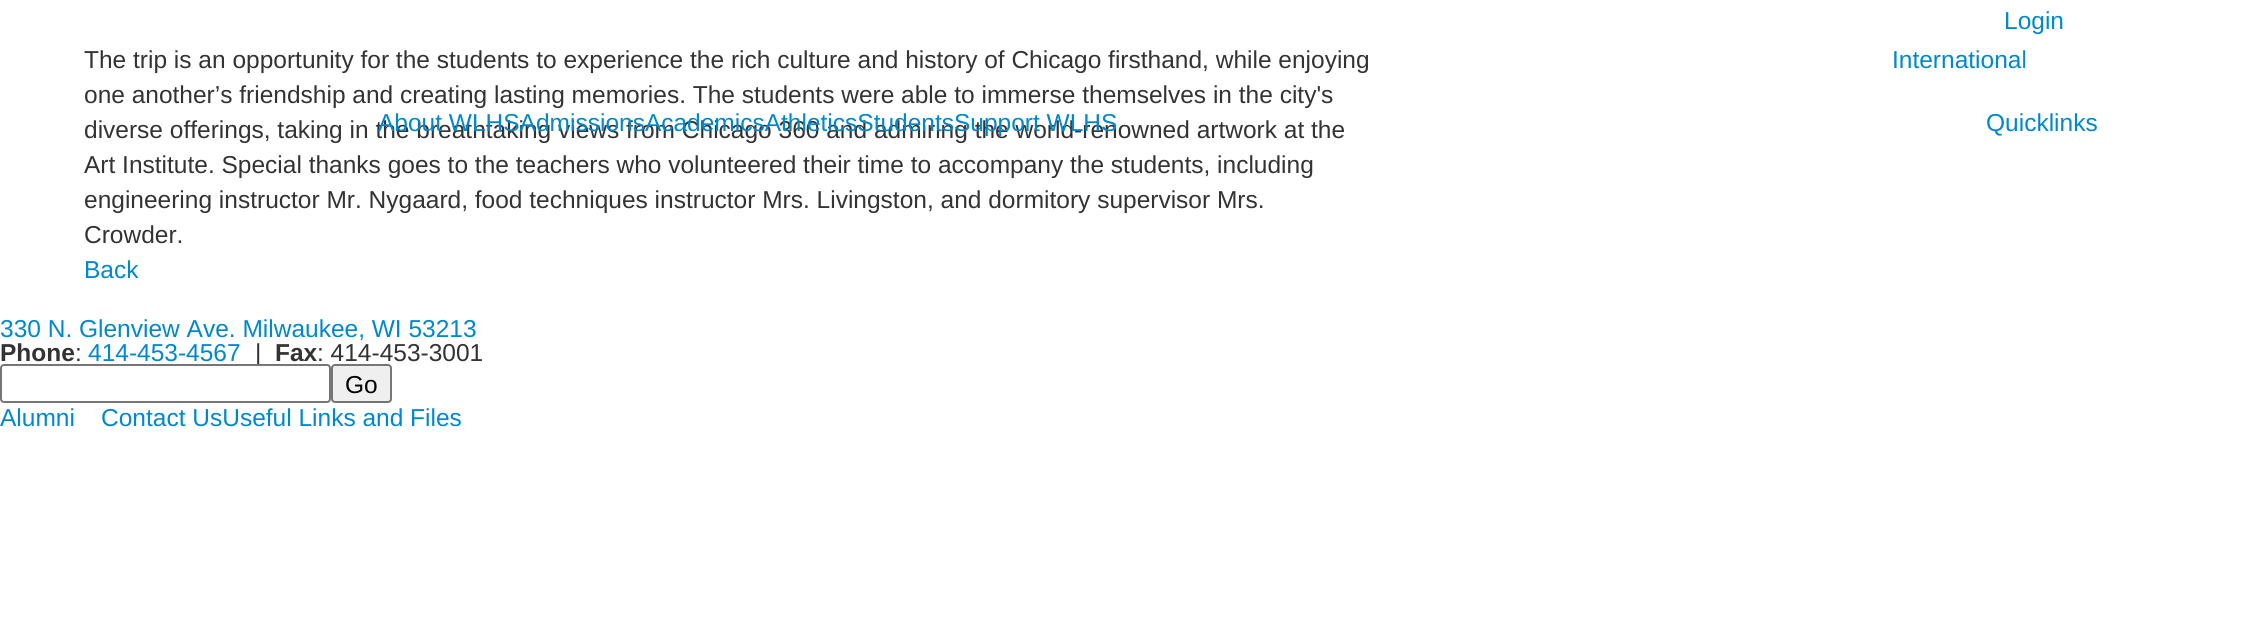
#include <cairo.h>
#include <math.h>
#include <stddef.h>

typedef struct { const char *family; double size; int italic, bold; unsigned color; } style_t;
static cairo_t *ctx;

static void ink(unsigned color) {
    cairo_set_source_rgb(ctx, (color >> 16) / 255.0, (color >> 8 & 255) / 255.0, (color & 255) / 255.0);
}

static void write(double x, double y, const char *s, const style_t *st) {
    cairo_select_font_face(ctx, st->family, st->italic ? CAIRO_FONT_SLANT_ITALIC : CAIRO_FONT_SLANT_NORMAL,
        st->bold ? CAIRO_FONT_WEIGHT_BOLD : CAIRO_FONT_WEIGHT_NORMAL);
    cairo_set_font_size(ctx, st->size);
    ink(st->color);
    cairo_move_to(ctx, x, y);
    cairo_show_text(ctx, s);
}

static void round_path(double x, double y, double w, double h, double r) {
    cairo_new_sub_path(ctx);
    cairo_arc(ctx, x + w - r, y + h - r, r, 0, M_PI / 2);
    cairo_arc(ctx, x + r, y + h - r, r, M_PI / 2, M_PI);
    cairo_arc(ctx, x + r, y + r, r, M_PI, 1.5 * M_PI);
    cairo_arc(ctx, x + w - r, y + r, r, 1.5 * M_PI, 2 * M_PI);
    cairo_close_path(ctx);
}

static const style_t s1 = {"Liberation Sans", 24.5, 0, 0, 0x0088cc};
static const style_t s2 = {"Liberation Sans", 24.5, 0, 0, 0x333333};
static const style_t s3 = {"Liberation Sans", 24.5, 0, 1, 0x333333};
static const style_t s4 = {"Liberation Sans", 24.5, 0, 0, 0x000000};

int main(void) {
    cairo_surface_t *surface = cairo_image_surface_create(CAIRO_FORMAT_RGB24, 2241, 640);
    ctx = cairo_create(surface);
    cairo_font_options_t *options = cairo_font_options_create();
    cairo_font_options_set_hint_metrics(options, CAIRO_HINT_METRICS_OFF);
    cairo_font_options_set_hint_style(options, CAIRO_HINT_STYLE_NONE);
    cairo_set_font_options(ctx, options);
    cairo_set_miter_limit(ctx, 4);
    ink(0xffffff);
    cairo_paint(ctx);
    write(2004, 29, "Login", &s1);
    write(1892, 68, "International", &s1);
    write(84, 138, "diverse offerings, taking in the breathtaking views from Chicago 360 and admiring the world-renowned artwork at the", &s2);
    write(378, 131, "About WLHSAdmissionsAcademicsAthleticsStudentsSupport WLHS", &s1);
    write(1986, 131, "Quicklinks", &s1);
    write(84, 68, "The trip is an opportunity for the students to experience the rich culture and history of Chicago firsthand, while enjoying", &s2);
    write(84, 103, "one another’s friendship and creating lasting memories. The students were able to immerse themselves in the city's", &s2);
    write(84, 173, "Art Institute. Special thanks goes to the teachers who volunteered their time to accompany the students, including", &s2);
    write(84, 208, "engineering instructor Mr. Nygaard, food techniques instructor Mrs. Livingston, and dormitory supervisor Mrs.", &s2);
    write(84, 243, "Crowder.", &s2);
    write(84, 278, "Back", &s1);
    write(0, 337, "330 N. Glenview Ave. Milwaukee, WI 53213", &s1);
    write(0, 361, "Phone", &s3);
    write(75, 361, ":", &s2);
    write(88, 361, "414-453-4567", &s1);
    write(255, 361, "|", &s2);
    write(275, 361, "Fax", &s3);
    write(317, 361, ": 414-453-3001", &s2);
    ink(0xffffff);
    round_path(1, 365, 329, 37, 3);
    cairo_fill_preserve(ctx);
    ink(0x767676);
    cairo_stroke(ctx);
    ink(0xefefef);
    round_path(332, 365, 59, 37, 3);
    cairo_fill_preserve(ctx);
    ink(0x767676);
    cairo_stroke(ctx);
    write(345, 393, "Go", &s4);
    write(0, 426, "Alumni", &s1);
    write(101, 426, "Contact UsUseful Links and Files", &s1);
    cairo_surface_write_to_png(surface, "screenshot.png");
    cairo_font_options_destroy(options);
    cairo_destroy(ctx);
    cairo_surface_destroy(surface);
    return 0;
}
